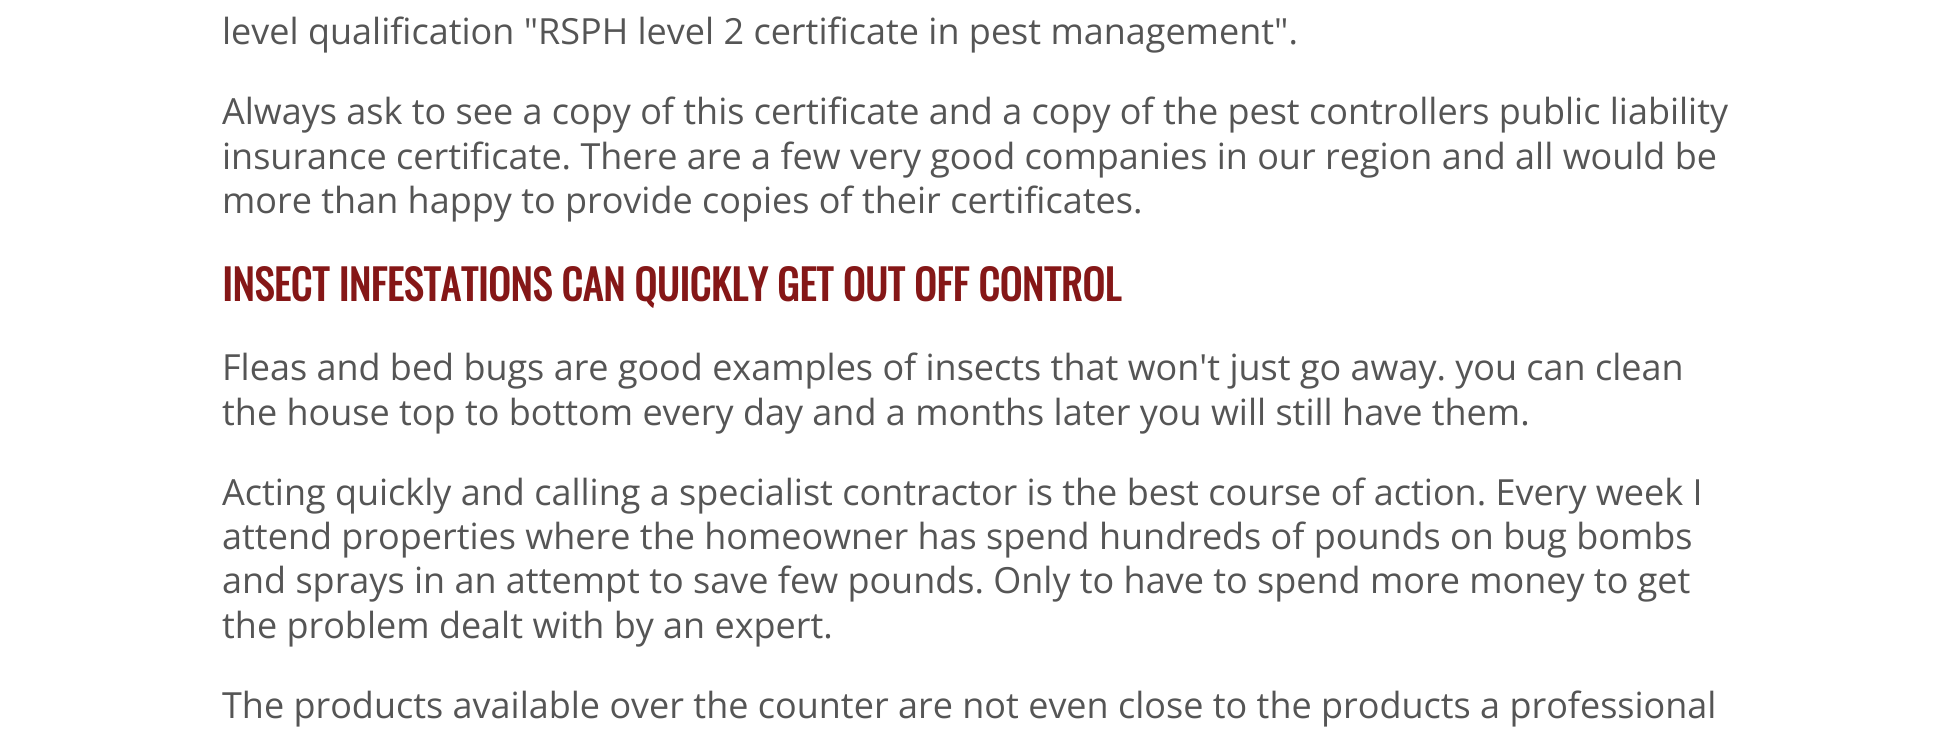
#include <cairo.h>
#include <math.h>
#include <stddef.h>

typedef struct { const char *family; double size; int italic, bold; unsigned color; } style_t;
static cairo_t *ctx;

static void ink(unsigned color) {
    cairo_set_source_rgb(ctx, (color >> 16) / 255.0, (color >> 8 & 255) / 255.0, (color & 255) / 255.0);
}

static void write(double x, double y, const char *s, const style_t *st) {
    cairo_select_font_face(ctx, st->family, st->italic ? CAIRO_FONT_SLANT_ITALIC : CAIRO_FONT_SLANT_NORMAL,
        st->bold ? CAIRO_FONT_WEIGHT_BOLD : CAIRO_FONT_WEIGHT_NORMAL);
    cairo_set_font_size(ctx, st->size);
    ink(st->color);
    cairo_move_to(ctx, x, y);
    cairo_show_text(ctx, s);
}

static const style_t s1 = {"Open Sans", 36, 0, 0, 0x555555};
static const style_t s2 = {"Oswald", 41.4, 0, 1, 0x851717};

int main(void) {
    cairo_surface_t *surface = cairo_image_surface_create(CAIRO_FORMAT_RGB24, 1948, 751);
    ctx = cairo_create(surface);
    cairo_font_options_t *options = cairo_font_options_create();
    cairo_font_options_set_hint_metrics(options, CAIRO_HINT_METRICS_OFF);
    cairo_font_options_set_hint_style(options, CAIRO_HINT_STYLE_NONE);
    cairo_set_font_options(ctx, options);
    cairo_set_miter_limit(ctx, 4);
    ink(0xffffff);
    cairo_paint(ctx);
    write(222, 44, "level qualification \"RSPH level 2 certificate in pest management\".", &s1);
    write(222, 124, "Always ask to see a copy of this certificate and a copy of the pest controllers public liability", &s1);
    write(222, 169, "insurance certificate. There are a few very good companies in our region and all would be", &s1);
    write(222, 213, "more than happy to provide copies of their certificates.", &s1);
    write(222, 301, "INSECT INFESTATIONS CAN QUICKLY GET OUT OFF CONTROL", &s2);
    write(222, 380, "Fleas and bed bugs are good examples of insects that won't just go away. you can clean", &s1);
    write(222, 425, "the house top to bottom every day and a months later you will still have them.", &s1);
    write(222, 505, "Acting quickly and calling a specialist contractor is the best course of action. Every week I", &s1);
    write(222, 549, "attend properties where the homeowner has spend hundreds of pounds on bug bombs", &s1);
    write(222, 593, "and sprays in an attempt to save few pounds. Only to have to spend more money to get", &s1);
    write(222, 638, "the problem dealt with by an expert.", &s1);
    write(222, 718, "The products available over the counter are not even close to the products a professional", &s1);
    cairo_surface_write_to_png(surface, "screenshot.png");
    cairo_font_options_destroy(options);
    cairo_destroy(ctx);
    cairo_surface_destroy(surface);
    return 0;
}
